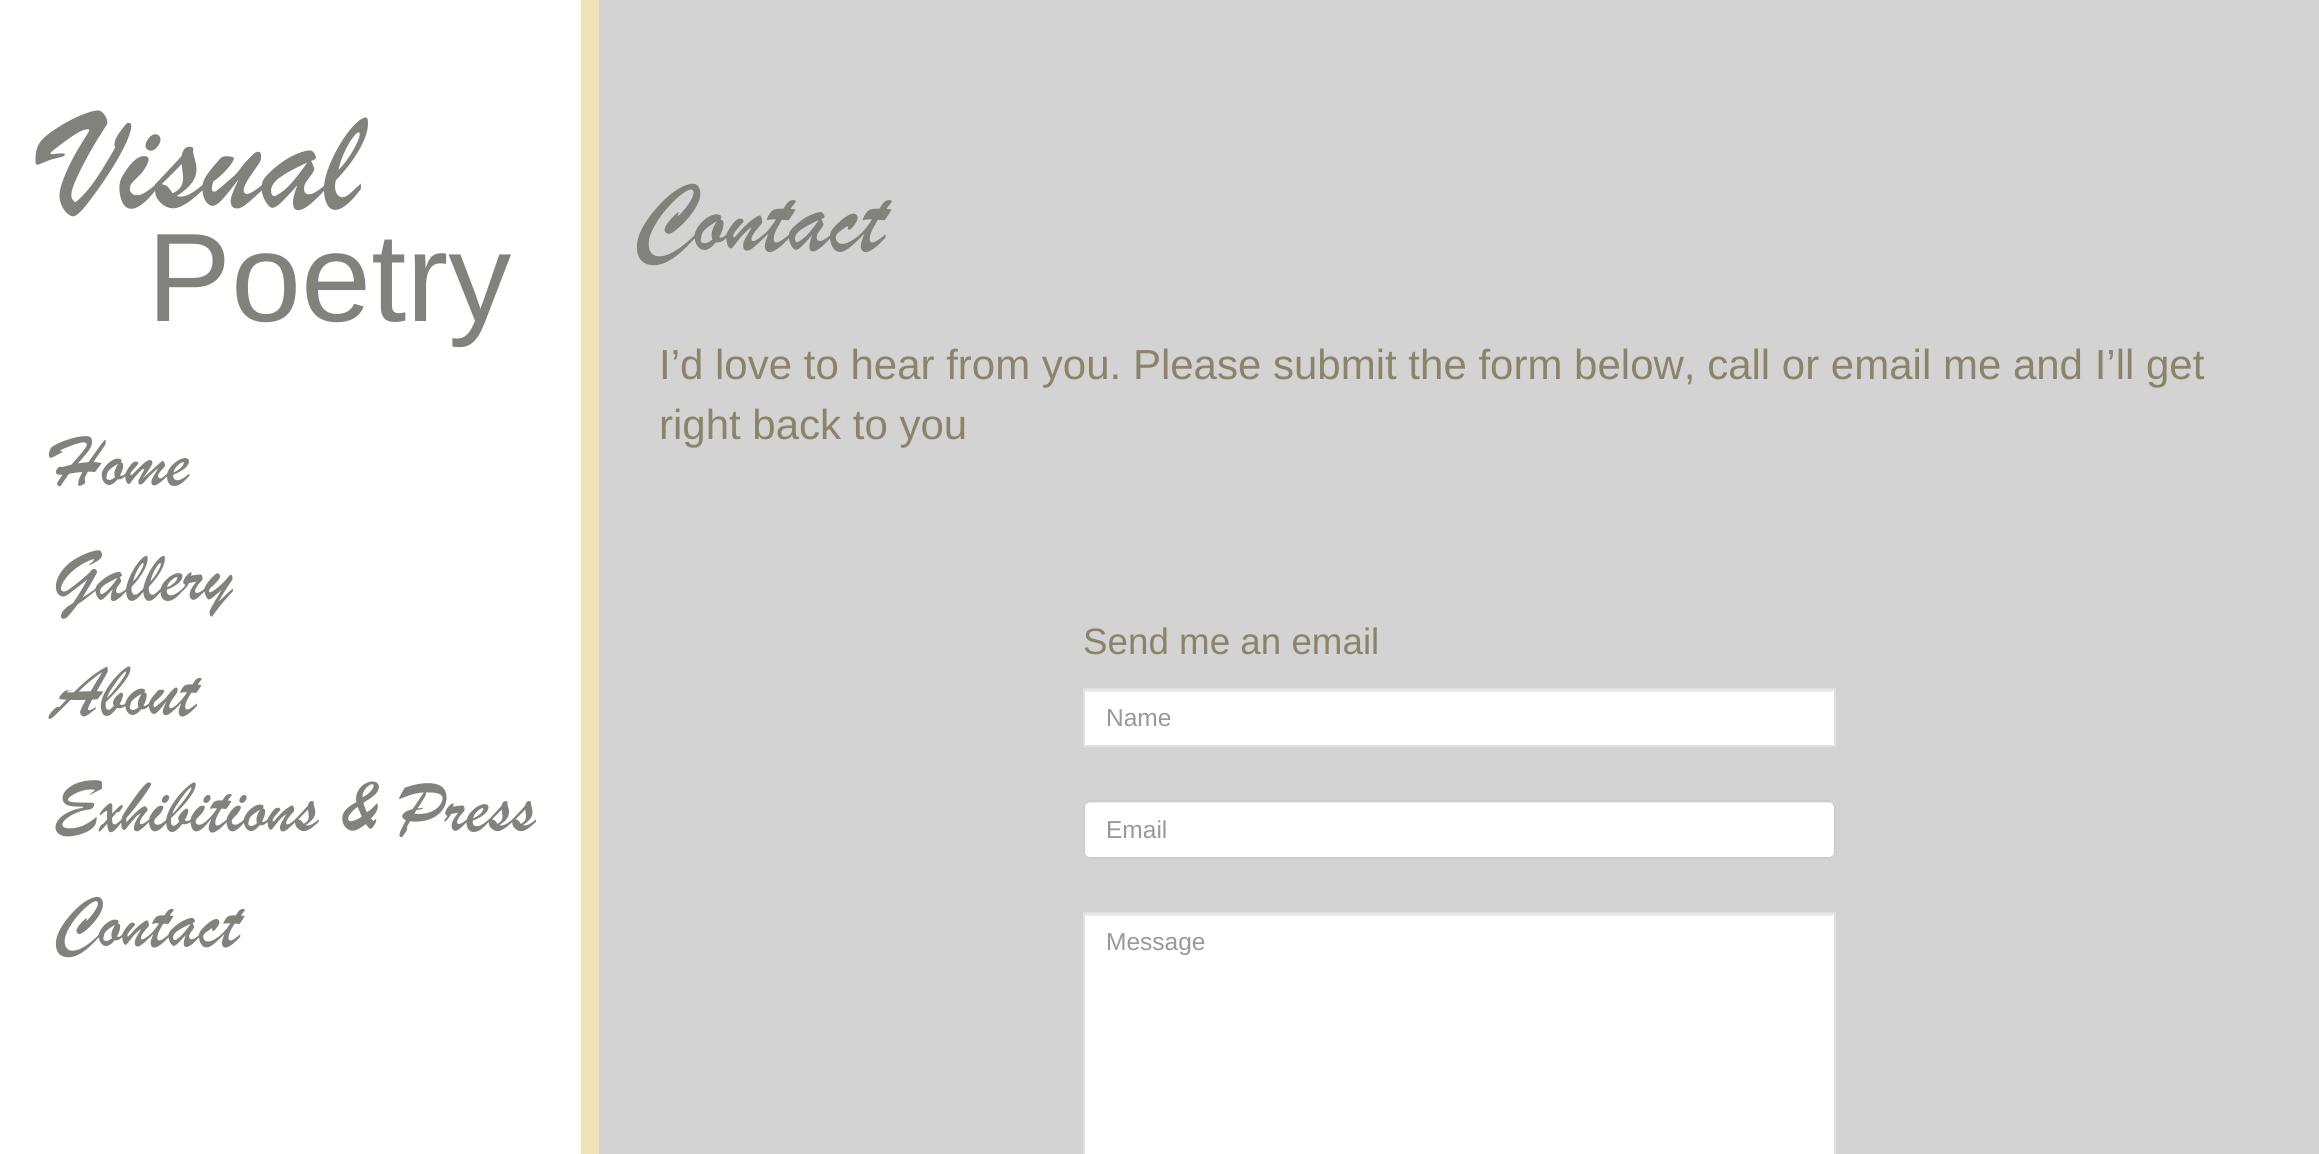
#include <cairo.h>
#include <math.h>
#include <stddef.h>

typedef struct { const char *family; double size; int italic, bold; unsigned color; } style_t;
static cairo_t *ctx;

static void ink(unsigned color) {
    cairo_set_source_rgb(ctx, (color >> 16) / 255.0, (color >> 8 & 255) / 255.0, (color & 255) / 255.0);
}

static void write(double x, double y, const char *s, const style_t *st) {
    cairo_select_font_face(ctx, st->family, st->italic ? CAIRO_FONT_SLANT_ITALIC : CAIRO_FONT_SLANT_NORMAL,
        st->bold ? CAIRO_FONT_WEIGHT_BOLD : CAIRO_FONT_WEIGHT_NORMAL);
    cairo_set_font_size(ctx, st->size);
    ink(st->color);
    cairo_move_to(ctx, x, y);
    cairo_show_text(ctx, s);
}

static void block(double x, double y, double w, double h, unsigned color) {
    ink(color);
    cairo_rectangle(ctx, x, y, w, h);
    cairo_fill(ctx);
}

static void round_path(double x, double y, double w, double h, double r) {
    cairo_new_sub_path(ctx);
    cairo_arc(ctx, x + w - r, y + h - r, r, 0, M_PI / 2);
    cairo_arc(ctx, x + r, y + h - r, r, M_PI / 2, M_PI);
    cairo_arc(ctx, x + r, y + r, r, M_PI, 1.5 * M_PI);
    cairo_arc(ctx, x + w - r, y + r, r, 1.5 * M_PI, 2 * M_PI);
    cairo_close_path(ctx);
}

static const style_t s1 = {"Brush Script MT", 154, 1, 0, 0x81827c};
static const style_t s2 = {"Liberation Sans", 126, 0, 0, 0x81827c};
static const style_t s3 = {"Brush Script MT", 75.25, 1, 0, 0x81827c};
static const style_t s4 = {"Brush Script MT", 101.5, 1, 0, 0x81827c};
static const style_t s5 = {"Liberation Sans", 42, 0, 0, 0x8b846a};
static const style_t s6 = {"Liberation Sans", 36.75, 0, 0, 0x8b846a};
static const style_t s7 = {"Liberation Sans", 24.5, 0, 0, 0x999999};

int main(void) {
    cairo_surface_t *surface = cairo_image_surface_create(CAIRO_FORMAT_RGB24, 2319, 1154);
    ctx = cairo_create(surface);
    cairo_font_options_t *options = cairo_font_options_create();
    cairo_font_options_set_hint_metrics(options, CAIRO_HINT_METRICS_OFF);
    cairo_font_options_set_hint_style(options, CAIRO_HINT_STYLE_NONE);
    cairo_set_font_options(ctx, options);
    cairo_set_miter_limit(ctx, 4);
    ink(0xffffff);
    cairo_paint(ctx);
    write(53, 208, "Visual", &s1);
    write(147, 321, "Poetry", &s2);
    write(53, 485, "Home", &s3);
    write(53, 600, "Gallery", &s3);
    write(53, 715, "About", &s3);
    write(53, 831, "Exhibitions & Press", &s3);
    write(53, 946, "Contact", &s3);
    block(599, 0, 1720, 1154, 0xd3d3d3);
    block(581, 0, 18, 1154, 0xeee3b5);
    write(633, 250, "Contact", &s4);
    write(659, 379, "I’d love to hear from you. Please submit the form below, call or email me and I’ll get", &s5);
    write(659, 439, "right back to you", &s5);
    write(1083, 654, "Send me an email", &s6);
    block(1085, 692, 749, 53, 0xffffff);
    block(1085, 690, 749, 2, 0xececec);
    cairo_rectangle(ctx, 1084, 689, 751, 57);
    ink(0xe0e0e0);
    cairo_stroke(ctx);
    write(1106, 726, "Name", &s7);
    ink(0xffffff);
    round_path(1083, 800, 753, 59, 7);
    cairo_fill(ctx);
    ink(0xececec);
    cairo_new_path(ctx);
    cairo_move_to(ctx, 1090, 803);
    cairo_line_to(ctx, 1829, 803);
    cairo_curve_to(ctx, 1832, 803, 1834, 806, 1834, 808);
    cairo_line_to(ctx, 1834, 807);
    cairo_curve_to(ctx, 1834, 804, 1832, 802, 1829, 802);
    cairo_line_to(ctx, 1090, 802);
    cairo_curve_to(ctx, 1087, 802, 1085, 804, 1085, 807);
    cairo_line_to(ctx, 1085, 808);
    cairo_curve_to(ctx, 1085, 806, 1087, 803, 1090, 803);
    cairo_close_path(ctx);
    cairo_fill(ctx);
    round_path(1084, 801, 751, 57, 6);
    ink(0xcccccc);
    cairo_stroke(ctx);
    write(1106, 838, "Email", &s7);
    block(1085, 916, 749, 238, 0xffffff);
    block(1085, 914, 749, 2, 0xececec);
    cairo_rectangle(ctx, 1084, 913, 751, 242);
    ink(0xe0e0e0);
    cairo_stroke(ctx);
    write(1106, 950, "Message", &s7);
    cairo_surface_write_to_png(surface, "screenshot.png");
    cairo_font_options_destroy(options);
    cairo_destroy(ctx);
    cairo_surface_destroy(surface);
    return 0;
}
